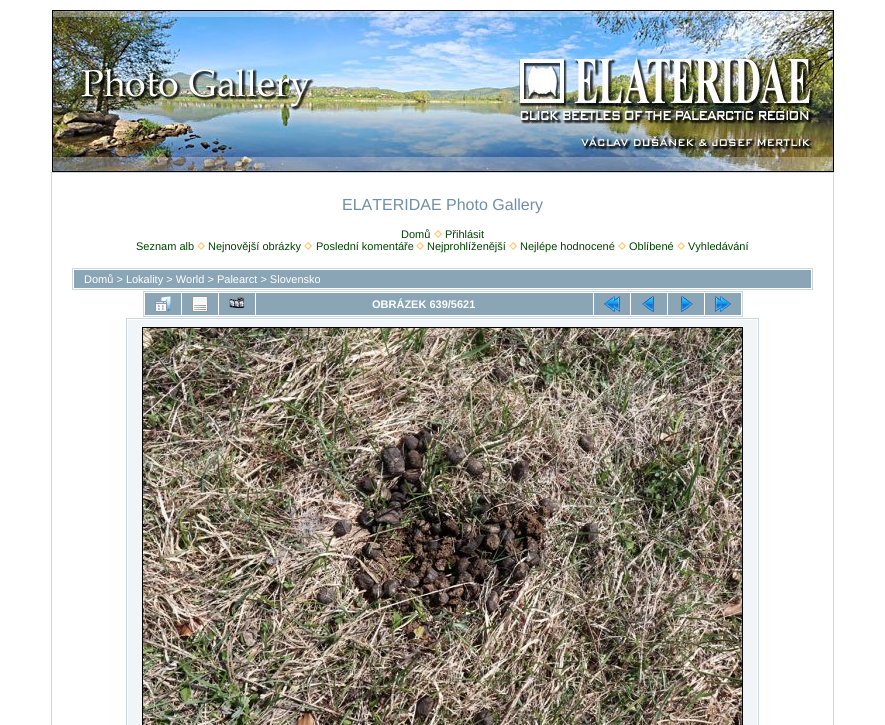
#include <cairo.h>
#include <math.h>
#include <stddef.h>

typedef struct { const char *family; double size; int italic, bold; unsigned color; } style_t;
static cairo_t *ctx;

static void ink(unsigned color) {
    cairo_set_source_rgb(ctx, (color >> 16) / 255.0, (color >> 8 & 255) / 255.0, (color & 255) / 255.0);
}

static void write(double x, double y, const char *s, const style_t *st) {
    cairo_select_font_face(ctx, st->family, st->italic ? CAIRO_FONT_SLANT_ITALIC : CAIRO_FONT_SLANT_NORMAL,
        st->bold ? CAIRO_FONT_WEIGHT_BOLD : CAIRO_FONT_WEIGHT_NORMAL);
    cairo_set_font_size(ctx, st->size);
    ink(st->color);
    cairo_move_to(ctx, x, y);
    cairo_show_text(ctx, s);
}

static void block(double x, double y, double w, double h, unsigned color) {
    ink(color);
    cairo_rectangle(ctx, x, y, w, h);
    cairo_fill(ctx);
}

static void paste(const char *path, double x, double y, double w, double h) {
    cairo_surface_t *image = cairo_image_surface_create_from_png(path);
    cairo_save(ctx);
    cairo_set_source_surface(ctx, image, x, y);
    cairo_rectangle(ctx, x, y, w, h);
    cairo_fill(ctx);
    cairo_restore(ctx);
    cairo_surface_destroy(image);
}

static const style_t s1 = {"Liberation Sans", 16, 0, 0, 0x718ea5};
static const style_t s2 = {"Liberation Sans", 11, 0, 0, 0x004201};
static const style_t s3 = {"Liberation Sans", 11, 0, 0, 0xffffff};
static const style_t s4 = {"Liberation Sans", 11, 0, 1, 0xffffff};

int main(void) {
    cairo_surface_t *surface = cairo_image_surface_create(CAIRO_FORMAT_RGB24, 885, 725);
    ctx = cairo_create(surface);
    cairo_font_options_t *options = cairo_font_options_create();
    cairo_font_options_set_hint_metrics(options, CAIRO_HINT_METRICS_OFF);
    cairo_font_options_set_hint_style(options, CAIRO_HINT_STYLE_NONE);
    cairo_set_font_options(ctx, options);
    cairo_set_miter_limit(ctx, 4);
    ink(0xffffff);
    cairo_paint(ctx);
    cairo_rectangle(ctx, 52.5, 10.5, 781, 161);
    ink(0x000000);
    cairo_set_line_width(ctx, 1);
    cairo_stroke(ctx);
    paste("pic1.png", 53, 11, 780, 160);
    cairo_rectangle(ctx, 51.5, 172.5, 782, 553);
    ink(0xccd7e0);
    cairo_stroke(ctx);
    write(342, 210, "ELATERIDAE Photo Gallery", &s1);
    write(401, 238, "Domů", &s2);
    paste("pic2.png", 434, 230, 8, 8);
    write(445, 238, "Přihlásit", &s2);
    write(136, 250, "Seznam alb", &s2);
    paste("pic2.png", 197, 242, 8, 8);
    write(208, 250, "Nejnovější obrázky", &s2);
    paste("pic2.png", 304, 242, 8, 8);
    write(316, 250, "Poslední komentáře", &s2);
    paste("pic2.png", 416, 242, 8, 8);
    write(427, 250, "Nejprohlíženější", &s2);
    paste("pic2.png", 509, 242, 8, 8);
    write(520, 250, "Nejlépe hodnocené", &s2);
    paste("pic2.png", 618, 242, 8, 8);
    write(629, 250, "Oblíbené", &s2);
    paste("pic2.png", 677, 242, 8, 8);
    write(688, 250, "Vyhledávání", &s2);
    cairo_rectangle(ctx, 72.5, 268.5, 740, 21);
    ink(0xccd7e0);
    cairo_stroke(ctx);
    block(74, 270, 737, 18, 0x8aa5b5);
    write(84, 283, "Domů > Lokality > World > Palearct > Slovensko", &s3);
    cairo_rectangle(ctx, 143.5, 291.5, 599, 25);
    ink(0xccd7e0);
    cairo_stroke(ctx);
    block(145, 293, 36, 22, 0x8aa5b5);
    paste("pic3.png", 155, 296, 16, 16);
    block(182, 293, 36, 22, 0x8aa5b5);
    paste("pic4.png", 192, 296, 16, 16);
    block(219, 293, 36, 22, 0x8aa5b5);
    paste("pic5.png", 229, 297, 16, 12);
    block(256, 293, 337, 22, 0x8aa5b5);
    write(372, 308, "OBRÁZEK 639/5621", &s4);
    block(594, 293, 36, 22, 0x8aa5b5);
    paste("pic6.png", 604, 296, 16, 16);
    block(631, 293, 36, 22, 0x8aa5b5);
    paste("pic7.png", 642, 296, 12, 16);
    block(668, 293, 36, 22, 0x8aa5b5);
    paste("pic8.png", 681, 296, 12, 16);
    block(705, 293, 36, 22, 0x8aa5b5);
    paste("pic9.png", 715, 296, 16, 16);
    cairo_rectangle(ctx, 126.5, 318.5, 632, 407);
    ink(0xccd7e0);
    cairo_stroke(ctx);
    block(128, 320, 629, 405, 0xf2f5f7);
    cairo_rectangle(ctx, 142.5, 327.5, 600, 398);
    ink(0x000000);
    cairo_stroke(ctx);
    paste("pic10.png", 143, 328, 599, 397);
    cairo_surface_write_to_png(surface, "screenshot.png");
    cairo_font_options_destroy(options);
    cairo_destroy(ctx);
    cairo_surface_destroy(surface);
    return 0;
}
